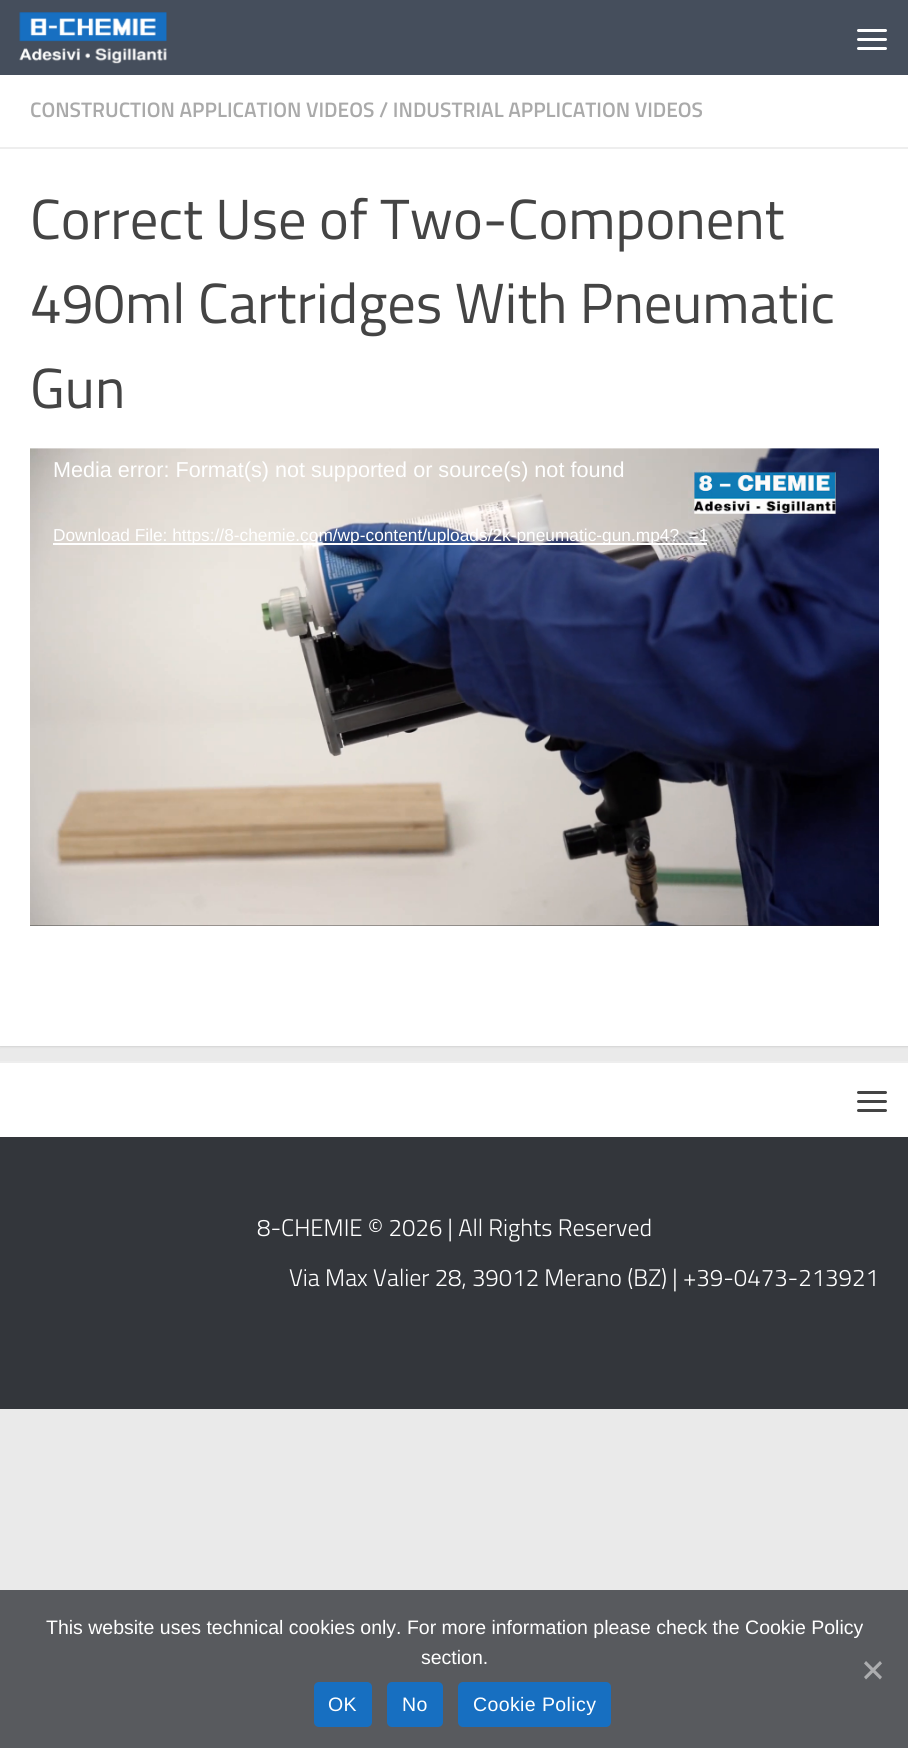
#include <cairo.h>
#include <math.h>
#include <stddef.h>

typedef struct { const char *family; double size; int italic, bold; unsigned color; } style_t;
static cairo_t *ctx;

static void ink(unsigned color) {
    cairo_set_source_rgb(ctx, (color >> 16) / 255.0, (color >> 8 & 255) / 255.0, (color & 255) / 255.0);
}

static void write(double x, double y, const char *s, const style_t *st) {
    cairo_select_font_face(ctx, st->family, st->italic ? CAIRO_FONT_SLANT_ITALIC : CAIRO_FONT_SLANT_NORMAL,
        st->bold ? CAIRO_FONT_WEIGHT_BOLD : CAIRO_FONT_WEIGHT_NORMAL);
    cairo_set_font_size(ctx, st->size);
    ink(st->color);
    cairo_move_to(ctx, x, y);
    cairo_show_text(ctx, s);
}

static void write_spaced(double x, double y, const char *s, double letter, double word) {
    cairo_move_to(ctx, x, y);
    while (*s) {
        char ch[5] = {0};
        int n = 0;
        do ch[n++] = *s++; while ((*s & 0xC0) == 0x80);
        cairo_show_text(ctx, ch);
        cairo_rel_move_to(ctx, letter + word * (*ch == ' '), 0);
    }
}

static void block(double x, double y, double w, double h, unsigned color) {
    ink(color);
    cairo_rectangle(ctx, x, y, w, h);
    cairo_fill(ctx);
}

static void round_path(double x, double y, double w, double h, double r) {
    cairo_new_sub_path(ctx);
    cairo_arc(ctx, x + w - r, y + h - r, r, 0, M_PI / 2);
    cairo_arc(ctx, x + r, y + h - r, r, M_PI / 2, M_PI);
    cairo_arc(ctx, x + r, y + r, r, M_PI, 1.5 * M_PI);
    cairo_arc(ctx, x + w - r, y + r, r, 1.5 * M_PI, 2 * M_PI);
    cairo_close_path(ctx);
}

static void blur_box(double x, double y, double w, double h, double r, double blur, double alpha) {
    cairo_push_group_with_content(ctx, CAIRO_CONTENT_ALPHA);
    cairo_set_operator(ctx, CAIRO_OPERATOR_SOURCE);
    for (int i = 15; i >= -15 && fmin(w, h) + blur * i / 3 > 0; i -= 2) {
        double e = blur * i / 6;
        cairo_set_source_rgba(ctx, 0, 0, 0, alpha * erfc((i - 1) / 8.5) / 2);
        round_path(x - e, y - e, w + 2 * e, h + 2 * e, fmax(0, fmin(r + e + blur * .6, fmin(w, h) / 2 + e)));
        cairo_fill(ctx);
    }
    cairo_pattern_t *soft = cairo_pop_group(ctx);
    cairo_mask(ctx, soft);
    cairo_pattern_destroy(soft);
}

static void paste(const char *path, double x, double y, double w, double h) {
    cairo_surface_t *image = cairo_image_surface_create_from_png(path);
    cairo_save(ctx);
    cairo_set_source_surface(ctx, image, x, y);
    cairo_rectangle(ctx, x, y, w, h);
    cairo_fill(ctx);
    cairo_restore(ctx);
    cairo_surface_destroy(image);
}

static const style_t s1 = {"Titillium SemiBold", 21, 0, 0, 0xaaaaaa};
static const style_t s2 = {"Titillium", 56.6, 0, 0, 0x444444};
static const style_t s3 = {"Liberation Sans", 21.6, 0, 0, 0xffffff};
static const style_t s4 = {"Liberation Sans", 17.3, 0, 0, 0xffffff};
static const style_t s5 = {"Titillium Light", 24, 0, 0, 0xffffff};
static const style_t s6 = {"Liberation Sans", 19.5, 0, 0, 0xffffff};

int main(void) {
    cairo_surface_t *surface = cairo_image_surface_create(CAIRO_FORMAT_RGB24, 908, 1748);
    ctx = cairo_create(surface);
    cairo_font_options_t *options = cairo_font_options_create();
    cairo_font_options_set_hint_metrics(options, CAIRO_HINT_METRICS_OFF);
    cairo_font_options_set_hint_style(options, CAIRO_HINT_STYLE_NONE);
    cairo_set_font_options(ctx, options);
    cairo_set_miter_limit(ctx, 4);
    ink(0xeaeaea);
    cairo_paint(ctx);
    ink(0x000000);
    blur_box(0, 77, 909, 970, 0, 1, 0.1);
    block(0, 0, 908, 75, 0x454e5c);
    paste("pic1.png", 19, 12, 148, 52);
    ink(0xffffff);
    round_path(857, 29, 30, 3, 1.5);
    cairo_fill(ctx);
    round_path(857, 38, 30, 3, 1.5);
    cairo_fill(ctx);
    round_path(857, 47, 30, 3, 1.5);
    cairo_fill(ctx);
    block(0, 75, 908, 971, 0xffffff);
    block(0, 147, 908, 2, 0xeeeeee);
    write(30, 117, "CONSTRUCTION APPLICATION VIDEOS / INDUSTRIAL APPLICATION VIDEOS", &s1);
    write(30, 239, "Correct Use of Two-Component", &s2);
    write(30, 323, "490ml Cartridges With Pneumatic", &s2);
    write(30, 408, "Gun", &s2);
    block(30, 925, 849, 1, 0x222222);
    paste("pic2.png", 30, 448, 849, 478);
    paste("pic3.png", 30, 448, 849, 478);
    write(53, 477, "Media error: Format(s) not supported or source(s) not found", &s3);
    block(53, 543, 654, 2, 0xffffff);
    write(53, 541, "Download File: https://8-chemie.com/wp-content/uploads/2k-pneumatic-gun.mp4?_=1", &s4);
    block(0, 1063, 908, 74, 0xffffff);
    block(0, 1061, 908, 2, 0xeeeeee);
    ink(0x444444);
    round_path(857, 1091, 30, 3, 1.5);
    cairo_fill(ctx);
    round_path(857, 1100, 30, 3, 1.5);
    cairo_fill(ctx);
    round_path(857, 1109, 30, 3, 1.5);
    cairo_fill(ctx);
    block(0, 1137, 908, 272, 0x33363b);
    write(257, 1236, "8-CHEMIE © 2026 | All Rights Reserved", &s5);
    write(289, 1286, "Via Max Valier 28, 39012 Merano (BZ) | +39-0473-213921", &s5);
    block(0, 1590, 908, 158, 0x585a5e);
    write(46, 1634, "This website uses technical cookies only. For more information please check the Cookie Policy", &s6);
    write(421, 1664, "section.", &s6);
    ink(0xacadaf);
    cairo_new_path(ctx);
    cairo_move_to(ctx, 880, 1661);
    cairo_line_to(ctx, 882, 1663.5);
    cairo_line_to(ctx, 866, 1679.5);
    cairo_line_to(ctx, 864, 1677);
    cairo_close_path(ctx);
    cairo_fill(ctx);
    cairo_new_path(ctx);
    cairo_move_to(ctx, 864, 1663.5);
    cairo_line_to(ctx, 866, 1661);
    cairo_line_to(ctx, 882, 1677);
    cairo_line_to(ctx, 880, 1679.5);
    cairo_close_path(ctx);
    cairo_fill(ctx);
    ink(0x176fc1);
    round_path(314, 1682, 58, 45, 5);
    cairo_fill(ctx);
    ink(0xffffff);
    write_spaced(328, 1711, "OK", 0.4, 0);
    ink(0x176fc1);
    round_path(387, 1682, 56, 45, 5);
    cairo_fill(ctx);
    ink(0xffffff);
    write_spaced(402, 1711, "No", 0.4, 0);
    ink(0x176fc1);
    round_path(458, 1682, 153, 45, 5);
    cairo_fill(ctx);
    ink(0xffffff);
    write_spaced(473, 1711, "Cookie Policy", 0.4, 0);
    cairo_surface_write_to_png(surface, "screenshot.png");
    cairo_font_options_destroy(options);
    cairo_destroy(ctx);
    cairo_surface_destroy(surface);
    return 0;
}
